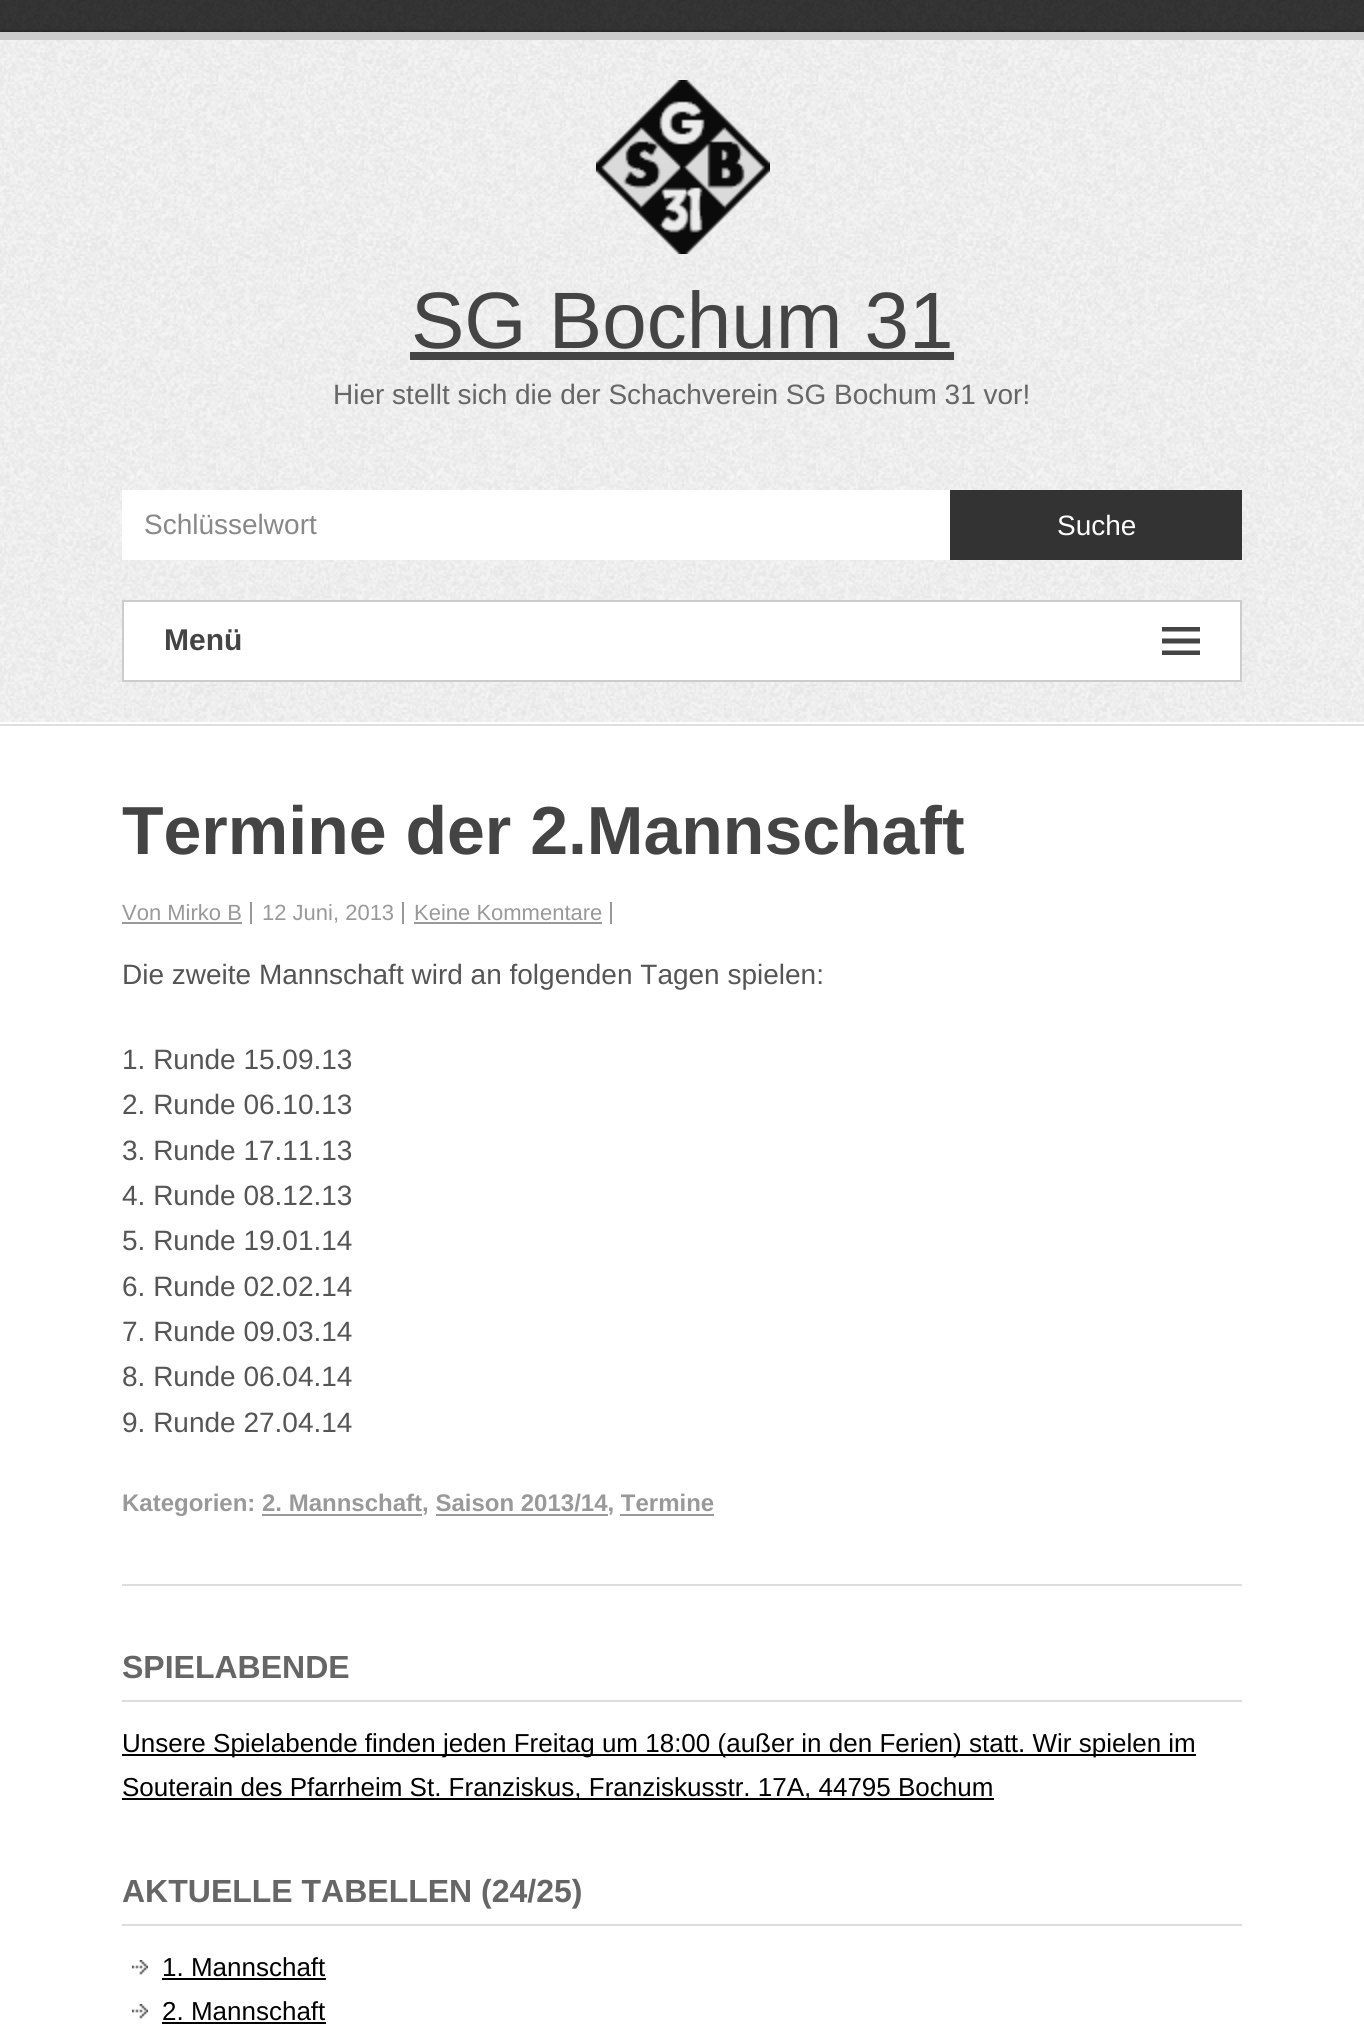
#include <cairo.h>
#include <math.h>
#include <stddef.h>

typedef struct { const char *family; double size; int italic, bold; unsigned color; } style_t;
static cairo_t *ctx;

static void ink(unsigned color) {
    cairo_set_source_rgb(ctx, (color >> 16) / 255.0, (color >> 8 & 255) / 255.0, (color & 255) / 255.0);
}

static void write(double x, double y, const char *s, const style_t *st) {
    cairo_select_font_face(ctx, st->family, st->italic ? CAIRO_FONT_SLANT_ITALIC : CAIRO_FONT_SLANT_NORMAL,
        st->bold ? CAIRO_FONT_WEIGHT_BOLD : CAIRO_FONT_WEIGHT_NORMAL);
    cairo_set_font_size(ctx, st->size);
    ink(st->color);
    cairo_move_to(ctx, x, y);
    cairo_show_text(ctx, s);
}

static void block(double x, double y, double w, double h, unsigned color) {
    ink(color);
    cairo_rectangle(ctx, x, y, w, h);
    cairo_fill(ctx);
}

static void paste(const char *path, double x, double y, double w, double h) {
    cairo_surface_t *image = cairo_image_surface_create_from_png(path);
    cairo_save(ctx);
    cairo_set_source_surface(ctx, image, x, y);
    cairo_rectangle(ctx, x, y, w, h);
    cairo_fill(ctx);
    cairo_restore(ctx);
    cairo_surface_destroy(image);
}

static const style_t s1 = {"Liberation Sans", 80, 0, 0, 0x444444};
static const style_t s2 = {"Liberation Sans", 28, 0, 0, 0x666666};
static const style_t s3 = {"Liberation Sans", 28, 0, 0, 0x888888};
static const style_t s4 = {"Liberation Sans", 28, 0, 0, 0xffffff};
static const style_t s5 = {"Liberation Sans", 30, 0, 1, 0x444444};
static const style_t s6 = {"Liberation Sans", 68, 0, 1, 0x444444};
static const style_t s7 = {"Liberation Sans", 22, 0, 0, 0x999999};
static const style_t s8 = {"Liberation Sans", 28, 0, 0, 0x555555};
static const style_t s9 = {"Liberation Sans", 24, 0, 1, 0x999999};
static const style_t s10 = {"Liberation Sans", 32, 0, 1, 0x666666};
static const style_t s11 = {"Liberation Sans", 26, 0, 0, 0x000000};

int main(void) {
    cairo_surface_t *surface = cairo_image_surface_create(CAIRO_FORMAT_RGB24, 1364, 2034);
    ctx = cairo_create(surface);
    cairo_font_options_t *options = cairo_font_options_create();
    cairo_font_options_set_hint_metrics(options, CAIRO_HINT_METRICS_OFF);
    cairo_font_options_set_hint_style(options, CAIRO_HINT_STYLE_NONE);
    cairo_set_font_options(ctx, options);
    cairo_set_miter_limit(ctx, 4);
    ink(0xffffff);
    cairo_paint(ctx);
    paste("pic1.png", 0, 40, 1364, 682);
    block(0, 724, 1364, 2, 0xdfdfdf);
    paste("pic2.png", 0, 0, 1364, 32);
    block(0, 32, 1364, 8, 0xcccccc);
    paste("pic3.png", 596, 80, 174, 174);
    write(411, 348, "SG Bochum 31", &s1);
    block(410, 352, 544, 8, 0x444444);
    write(333, 404, "Hier stellt sich die der Schachverein SG Bochum 31 vor!", &s2);
    block(122, 490, 828, 70, 0xffffff);
    write(144, 534, "Schlüsselwort", &s3);
    block(950, 490, 292, 70, 0x333333);
    write(1057, 535, "Suche", &s4);
    cairo_rectangle(ctx, 123, 601, 1118, 80);
    cairo_fill_preserve(ctx);
    ink(0xcccccc);
    cairo_stroke(ctx);
    write(164, 650, "Menü", &s5);
    cairo_new_path(ctx);
    cairo_move_to(ctx, 1162, 655);
    cairo_line_to(ctx, 1162, 650.5);
    cairo_line_to(ctx, 1200, 650.5);
    cairo_line_to(ctx, 1200, 655);
    cairo_close_path(ctx);
    cairo_move_to(ctx, 1162, 627);
    cairo_line_to(ctx, 1200, 627);
    cairo_line_to(ctx, 1200, 631.5);
    cairo_line_to(ctx, 1162, 631.5);
    cairo_close_path(ctx);
    cairo_move_to(ctx, 1162, 643.5);
    cairo_line_to(ctx, 1162, 638.5);
    cairo_line_to(ctx, 1200, 638.5);
    cairo_line_to(ctx, 1200, 643.5);
    cairo_close_path(ctx);
    cairo_fill(ctx);
    block(122, 1584, 1120, 2, 0xdddddd);
    write(122, 854, "Termine der 2.Mannschaft", &s6);
    block(250, 902, 2, 22, 0x999999);
    write(122, 920, "Von Mirko B", &s7);
    block(122, 922, 120, 2, 0x999999);
    block(402, 902, 2, 22, 0x999999);
    write(262, 920, "12 Juni, 2013", &s7);
    block(610, 902, 2, 22, 0x999999);
    write(414, 920, "Keine Kommentare", &s7);
    block(414, 922, 188, 2, 0x999999);
    write(122, 984, "Die zweite Mannschaft wird an folgenden Tagen spielen:", &s8);
    write(122, 1069, "1. Runde 15.09.13", &s8);
    write(122, 1114, "2. Runde 06.10.13", &s8);
    write(122, 1160, "3. Runde 17.11.13", &s8);
    write(122, 1205, "4. Runde 08.12.13", &s8);
    write(122, 1250, "5. Runde 19.01.14", &s8);
    write(122, 1296, "6. Runde 02.02.14", &s8);
    write(122, 1341, "7. Runde 09.03.14", &s8);
    write(122, 1386, "8. Runde 06.04.14", &s8);
    write(122, 1432, "9. Runde 27.04.14", &s8);
    write(122, 1511, "Kategorien: 2. Mannschaft, Saison 2013/14, Termine", &s9);
    block(262, 1514, 160, 2, 0x999999);
    block(436, 1514, 172, 2, 0x999999);
    block(620, 1514, 94, 2, 0x999999);
    block(122, 1700, 1120, 2, 0xdddddd);
    write(122, 1678, "SPIELABENDE", &s10);
    block(122, 1754, 1074, 2, 0x000000);
    write(122, 1752, "Unsere Spielabende finden jeden Freitag um 18:00 (außer in den Ferien) statt. Wir spielen im", &s11);
    block(122, 1798, 872, 2, 0x000000);
    write(122, 1796, "Souterain des Pfarrheim St. Franziskus, Franziskusstr. 17A, 44795 Bochum", &s11);
    block(122, 1924, 1120, 2, 0xdddddd);
    write(122, 1902, "AKTUELLE TABELLEN (24/25)", &s10);
    paste("pic4.png", 132, 1960, 16, 15);
    write(162, 1976, "1. Mannschaft", &s11);
    block(162, 1978, 164, 2, 0x000000);
    paste("pic4.png", 132, 2004, 16, 15);
    write(162, 2020, "2. Mannschaft", &s11);
    block(162, 2022, 164, 2, 0x000000);
    cairo_surface_write_to_png(surface, "screenshot.png");
    cairo_font_options_destroy(options);
    cairo_destroy(ctx);
    cairo_surface_destroy(surface);
    return 0;
}
